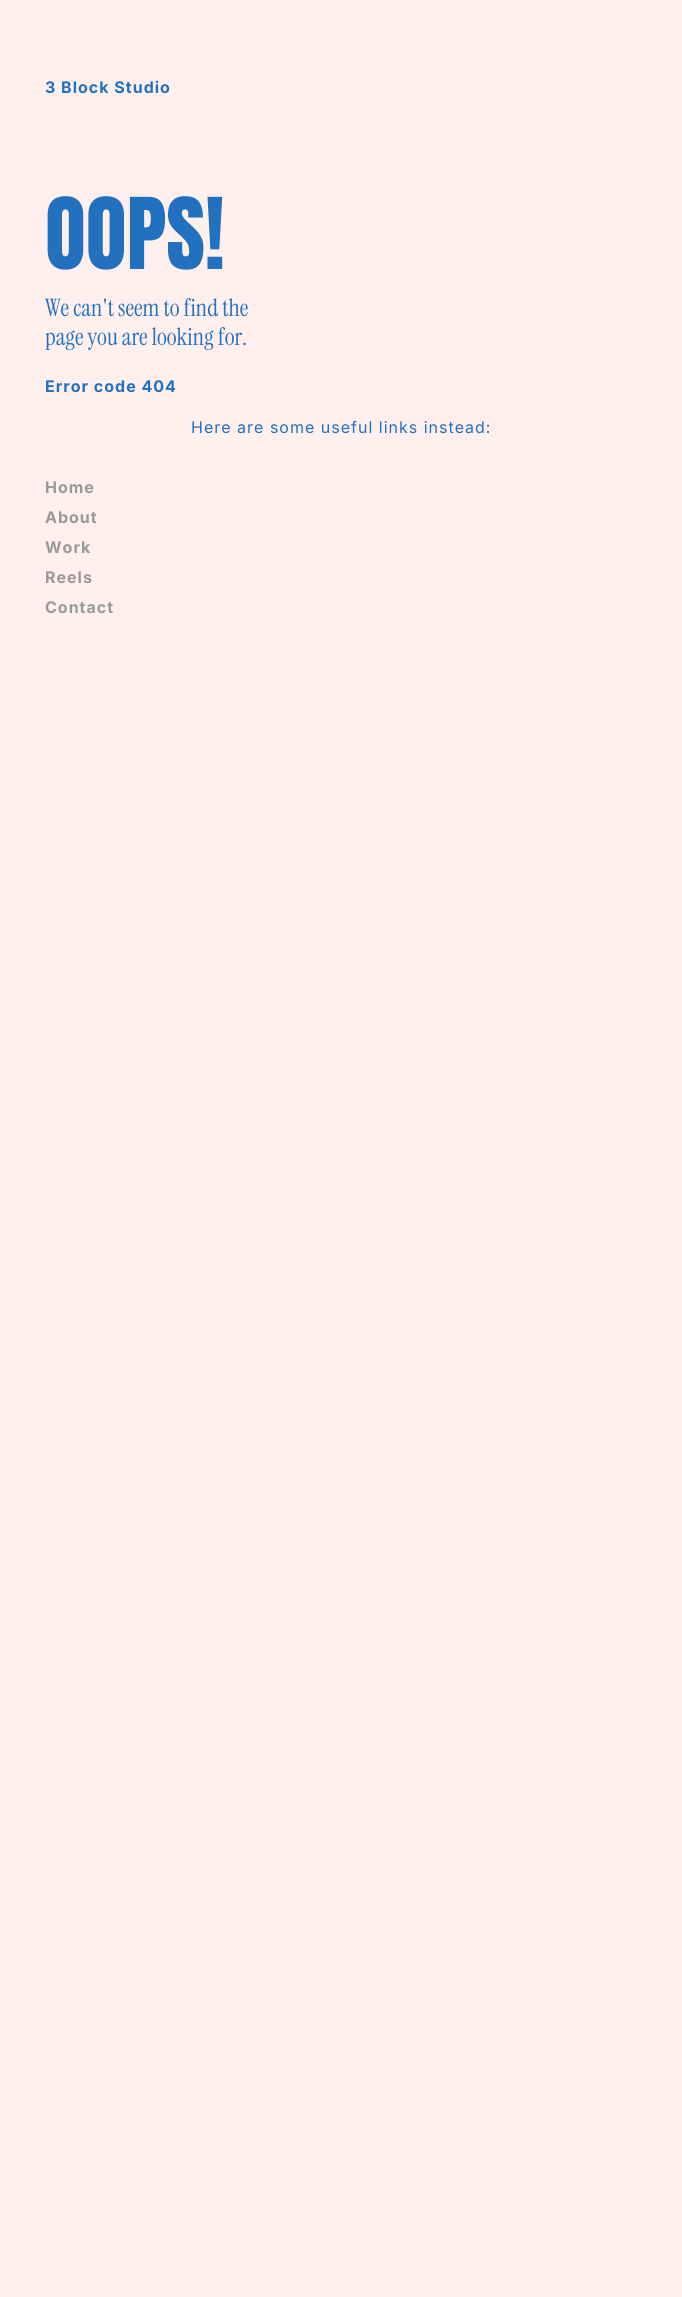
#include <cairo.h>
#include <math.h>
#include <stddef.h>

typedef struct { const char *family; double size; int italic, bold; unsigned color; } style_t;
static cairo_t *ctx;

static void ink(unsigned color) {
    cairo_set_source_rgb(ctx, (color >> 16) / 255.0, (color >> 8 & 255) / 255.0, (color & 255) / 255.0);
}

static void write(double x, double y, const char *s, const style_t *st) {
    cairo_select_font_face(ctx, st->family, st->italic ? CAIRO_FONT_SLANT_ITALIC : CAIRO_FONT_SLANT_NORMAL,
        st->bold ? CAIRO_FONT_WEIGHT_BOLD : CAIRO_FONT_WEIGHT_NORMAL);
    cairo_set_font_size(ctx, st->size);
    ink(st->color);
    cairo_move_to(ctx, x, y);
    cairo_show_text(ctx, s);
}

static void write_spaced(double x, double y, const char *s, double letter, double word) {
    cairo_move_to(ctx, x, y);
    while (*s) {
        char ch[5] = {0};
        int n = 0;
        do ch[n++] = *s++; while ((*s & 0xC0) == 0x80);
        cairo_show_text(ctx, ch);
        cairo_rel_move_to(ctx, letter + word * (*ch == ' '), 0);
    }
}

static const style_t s1 = {"Anton", 84, 0, 0, 0x2271bf};
static const style_t s2 = {"Instrument Serif", 24, 0, 0, 0x2271bf};

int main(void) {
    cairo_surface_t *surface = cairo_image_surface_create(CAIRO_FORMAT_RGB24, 682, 2297);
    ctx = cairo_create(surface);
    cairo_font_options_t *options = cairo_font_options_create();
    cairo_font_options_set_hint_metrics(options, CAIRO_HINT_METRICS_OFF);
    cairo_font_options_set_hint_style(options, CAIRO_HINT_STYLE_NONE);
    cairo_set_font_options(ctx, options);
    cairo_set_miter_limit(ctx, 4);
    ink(0xffefed);
    cairo_paint(ctx);
    cairo_select_font_face(ctx, "Inter", CAIRO_FONT_SLANT_NORMAL, CAIRO_FONT_WEIGHT_BOLD);
    cairo_set_font_size(ctx, 16);
    ink(0x2271bf);
    write_spaced(45, 93, "3 Block Studio", 1, 0);
    write(45, 269, "OOPS!", &s1);
    write(45, 316, "We can't seem to find the", &s2);
    write(45, 345, "page you are looking for.", &s2);
    cairo_select_font_face(ctx, "Inter", CAIRO_FONT_SLANT_NORMAL, CAIRO_FONT_WEIGHT_BOLD);
    cairo_set_font_size(ctx, 16);
    write_spaced(45, 392, "Error code 404", 1, 0);
    cairo_select_font_face(ctx, "Inter", CAIRO_FONT_SLANT_NORMAL, CAIRO_FONT_WEIGHT_NORMAL);
    write_spaced(191, 433, "Here are some useful links instead:", 1, 0);
    cairo_select_font_face(ctx, "Inter", CAIRO_FONT_SLANT_NORMAL, CAIRO_FONT_WEIGHT_BOLD);
    ink(0x999999);
    write_spaced(45, 493, "Home", 1, 0);
    write_spaced(45, 523, "About", 1, 0);
    write_spaced(45, 553, "Work", 1, 0);
    write_spaced(45, 583, "Reels", 1, 0);
    write_spaced(45, 613, "Contact", 1, 0);
    cairo_surface_write_to_png(surface, "screenshot.png");
    cairo_font_options_destroy(options);
    cairo_destroy(ctx);
    cairo_surface_destroy(surface);
    return 0;
}
